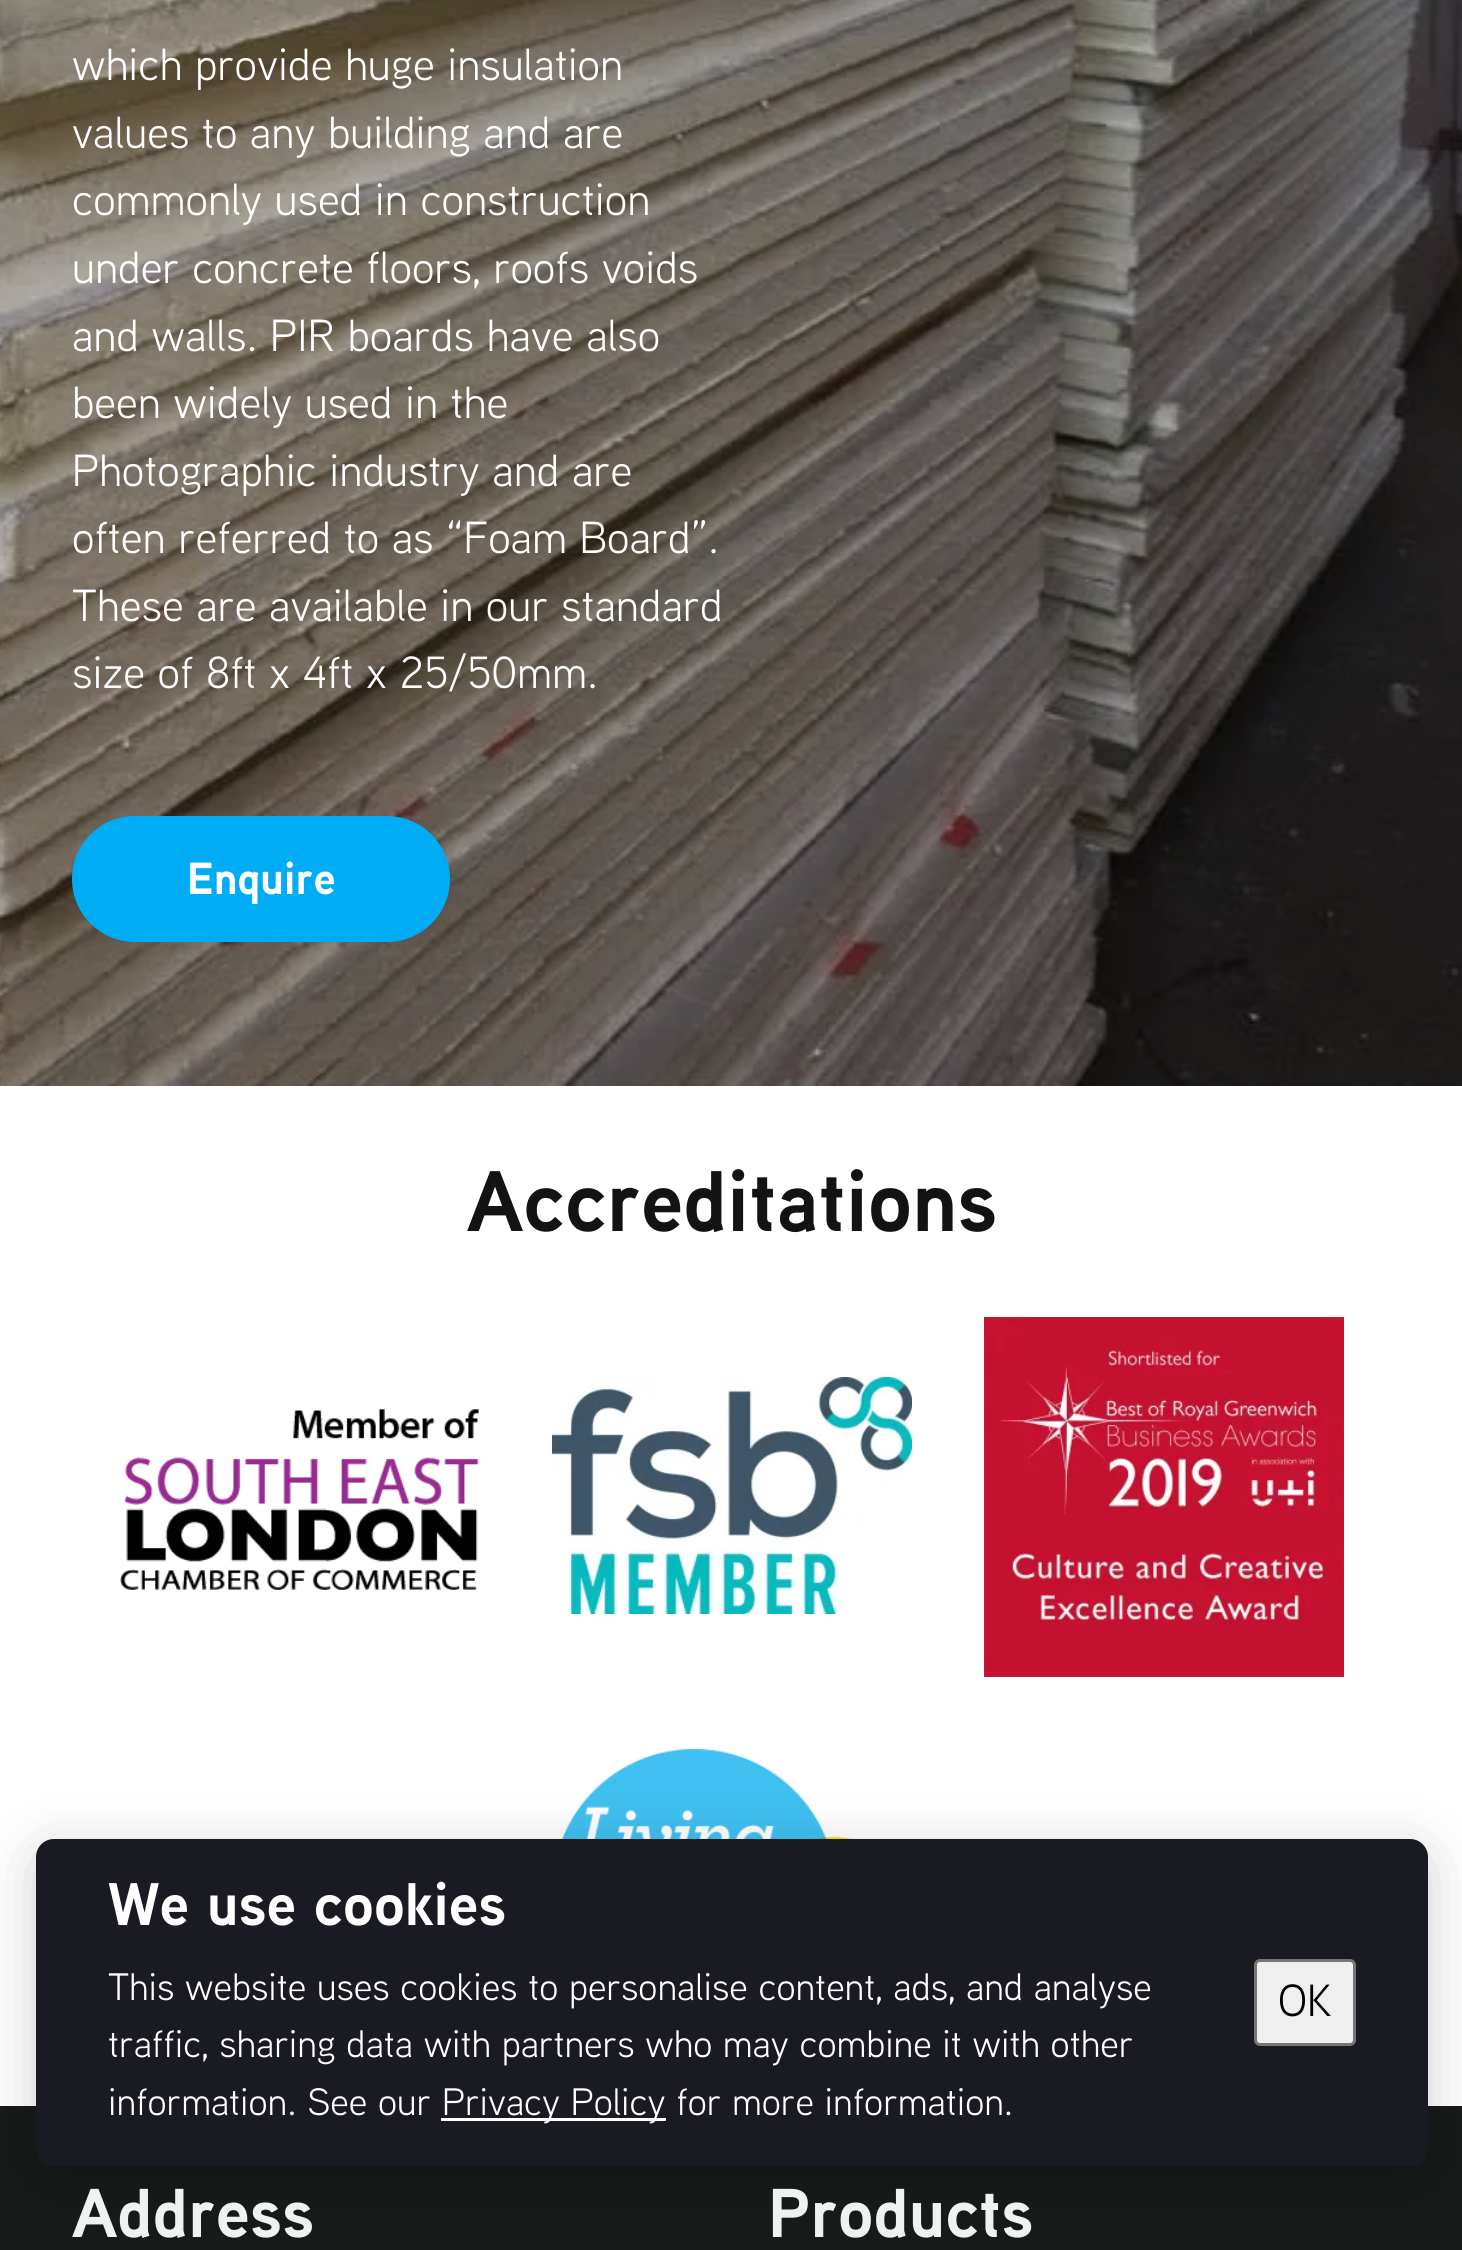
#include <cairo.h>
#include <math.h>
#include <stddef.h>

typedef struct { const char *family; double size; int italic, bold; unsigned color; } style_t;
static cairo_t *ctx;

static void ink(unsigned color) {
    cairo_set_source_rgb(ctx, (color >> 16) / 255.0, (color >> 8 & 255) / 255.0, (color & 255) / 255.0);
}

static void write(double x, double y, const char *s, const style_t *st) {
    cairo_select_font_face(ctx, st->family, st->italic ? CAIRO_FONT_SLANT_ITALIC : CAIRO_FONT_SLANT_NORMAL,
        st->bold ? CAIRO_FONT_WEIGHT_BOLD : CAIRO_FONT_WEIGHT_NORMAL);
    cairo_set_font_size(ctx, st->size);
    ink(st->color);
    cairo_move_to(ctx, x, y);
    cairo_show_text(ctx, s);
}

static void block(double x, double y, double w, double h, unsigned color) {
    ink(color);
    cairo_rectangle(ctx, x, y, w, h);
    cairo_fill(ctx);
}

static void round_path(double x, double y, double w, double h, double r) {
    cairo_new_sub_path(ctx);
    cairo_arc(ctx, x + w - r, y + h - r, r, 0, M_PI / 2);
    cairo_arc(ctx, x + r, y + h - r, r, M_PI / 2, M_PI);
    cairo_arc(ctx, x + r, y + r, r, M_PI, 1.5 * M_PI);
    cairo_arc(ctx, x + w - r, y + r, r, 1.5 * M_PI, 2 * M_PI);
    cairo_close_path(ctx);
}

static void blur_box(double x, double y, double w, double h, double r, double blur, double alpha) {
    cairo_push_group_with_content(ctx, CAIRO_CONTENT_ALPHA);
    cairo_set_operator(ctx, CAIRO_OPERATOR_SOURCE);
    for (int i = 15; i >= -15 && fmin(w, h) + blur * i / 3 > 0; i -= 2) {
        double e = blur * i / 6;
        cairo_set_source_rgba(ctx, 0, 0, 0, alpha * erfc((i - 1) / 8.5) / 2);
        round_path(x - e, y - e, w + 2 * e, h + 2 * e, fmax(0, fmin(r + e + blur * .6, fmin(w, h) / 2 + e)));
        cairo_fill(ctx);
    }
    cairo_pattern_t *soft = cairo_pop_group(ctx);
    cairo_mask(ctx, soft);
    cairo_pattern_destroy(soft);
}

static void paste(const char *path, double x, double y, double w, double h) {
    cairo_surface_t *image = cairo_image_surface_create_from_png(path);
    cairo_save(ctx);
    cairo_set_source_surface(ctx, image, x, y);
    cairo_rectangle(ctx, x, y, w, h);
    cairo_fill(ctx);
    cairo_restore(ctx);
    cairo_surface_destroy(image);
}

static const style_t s1 = {"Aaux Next", 45, 0, 0, 0xffffff};
static const style_t s2 = {"Aaux Next", 45, 0, 1, 0xffffff};
static const style_t s3 = {"Aaux Next", 85.75, 0, 1, 0x121313};
static const style_t s4 = {"Aaux Next", 60, 0, 1, 0xffffff};
static const style_t s5 = {"Aaux Next", 38.25, 0, 0, 0xffffff};
static const style_t s6 = {"Aaux Next", 45, 0, 0, 0x000000};
static const style_t s7 = {"Aaux Next", 69, 0, 1, 0xedf2f2};

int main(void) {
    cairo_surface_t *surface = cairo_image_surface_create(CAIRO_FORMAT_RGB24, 1462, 2250);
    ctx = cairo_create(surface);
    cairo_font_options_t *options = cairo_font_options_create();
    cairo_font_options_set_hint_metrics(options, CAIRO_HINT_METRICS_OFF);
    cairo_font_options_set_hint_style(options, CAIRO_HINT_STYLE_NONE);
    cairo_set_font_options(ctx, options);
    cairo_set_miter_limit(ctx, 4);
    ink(0xffffff);
    cairo_paint(ctx);
    paste("pic1.png", 0, 0, 1462, 1086);
    write(72, 80, "which provide huge insulation", &s1);
    write(72, 148, "values to any building and are", &s1);
    write(72, 215, "commonly used in construction", &s1);
    write(72, 283, "under concrete floors, roofs voids", &s1);
    write(72, 351, "and walls. PIR boards have also", &s1);
    write(72, 418, "been widely used in the", &s1);
    write(72, 486, "Photographic industry and are", &s1);
    write(72, 553, "often referred to as “Foam Board”.", &s1);
    write(72, 621, "These are available in our standard", &s1);
    write(72, 688, "size of 8ft x 4ft x 25/50mm.", &s1);
    cairo_save(ctx);
    cairo_rectangle(ctx, 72, 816, 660, 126);
    cairo_clip(ctx);
    ink(0x181a1a);
    blur_box(75, 819, 378, 126, 63, 5, 0.1);
    cairo_restore(ctx);
    ink(0x00adf5);
    round_path(72, 816, 378, 126, 63);
    cairo_fill(ctx);
    write(187, 894, "Enquire", &s2);
    write(467, 1231, "Accreditations", &s3);
    paste("pic2.png", 120, 1409, 359, 181);
    paste("pic3.png", 552, 1377, 360, 237);
    paste("pic4.png", 984, 1317, 360, 360);
    paste("pic5.png", 552, 1749, 360, 90);
    block(0, 2106, 1462, 144, 0x181a1a);
    ink(0x000000);
    blur_box(36, 1851, 1392, 327, 18, 27, 0.2);
    ink(0x191a22);
    round_path(36, 1839, 1392, 327, 18);
    cairo_fill(ctx);
    write(108, 1925, "We use cookies", &s4);
    write(108, 2000, "This website uses cookies to personalise content, ads, and analyse", &s5);
    write(108, 2057, "traffic, sharing data with partners who may combine it with other", &s5);
    write(108, 2115, "information. See our", &s5);
    block(441, 2118, 225, 3, 0xffffff);
    write(442, 2115, "Privacy Policy for more information.", &s5);
    ink(0xefefef);
    round_path(1255.5, 1960.5, 99, 84, 4.5);
    cairo_fill_preserve(ctx);
    ink(0x767676);
    cairo_set_line_width(ctx, 3);
    cairo_stroke(ctx);
    write(1278, 2016, "OK", &s6);
    write(72, 2237, "Address", &s7);
    write(768, 2237, "Products", &s7);
    cairo_surface_write_to_png(surface, "screenshot.png");
    cairo_font_options_destroy(options);
    cairo_destroy(ctx);
    cairo_surface_destroy(surface);
    return 0;
}
